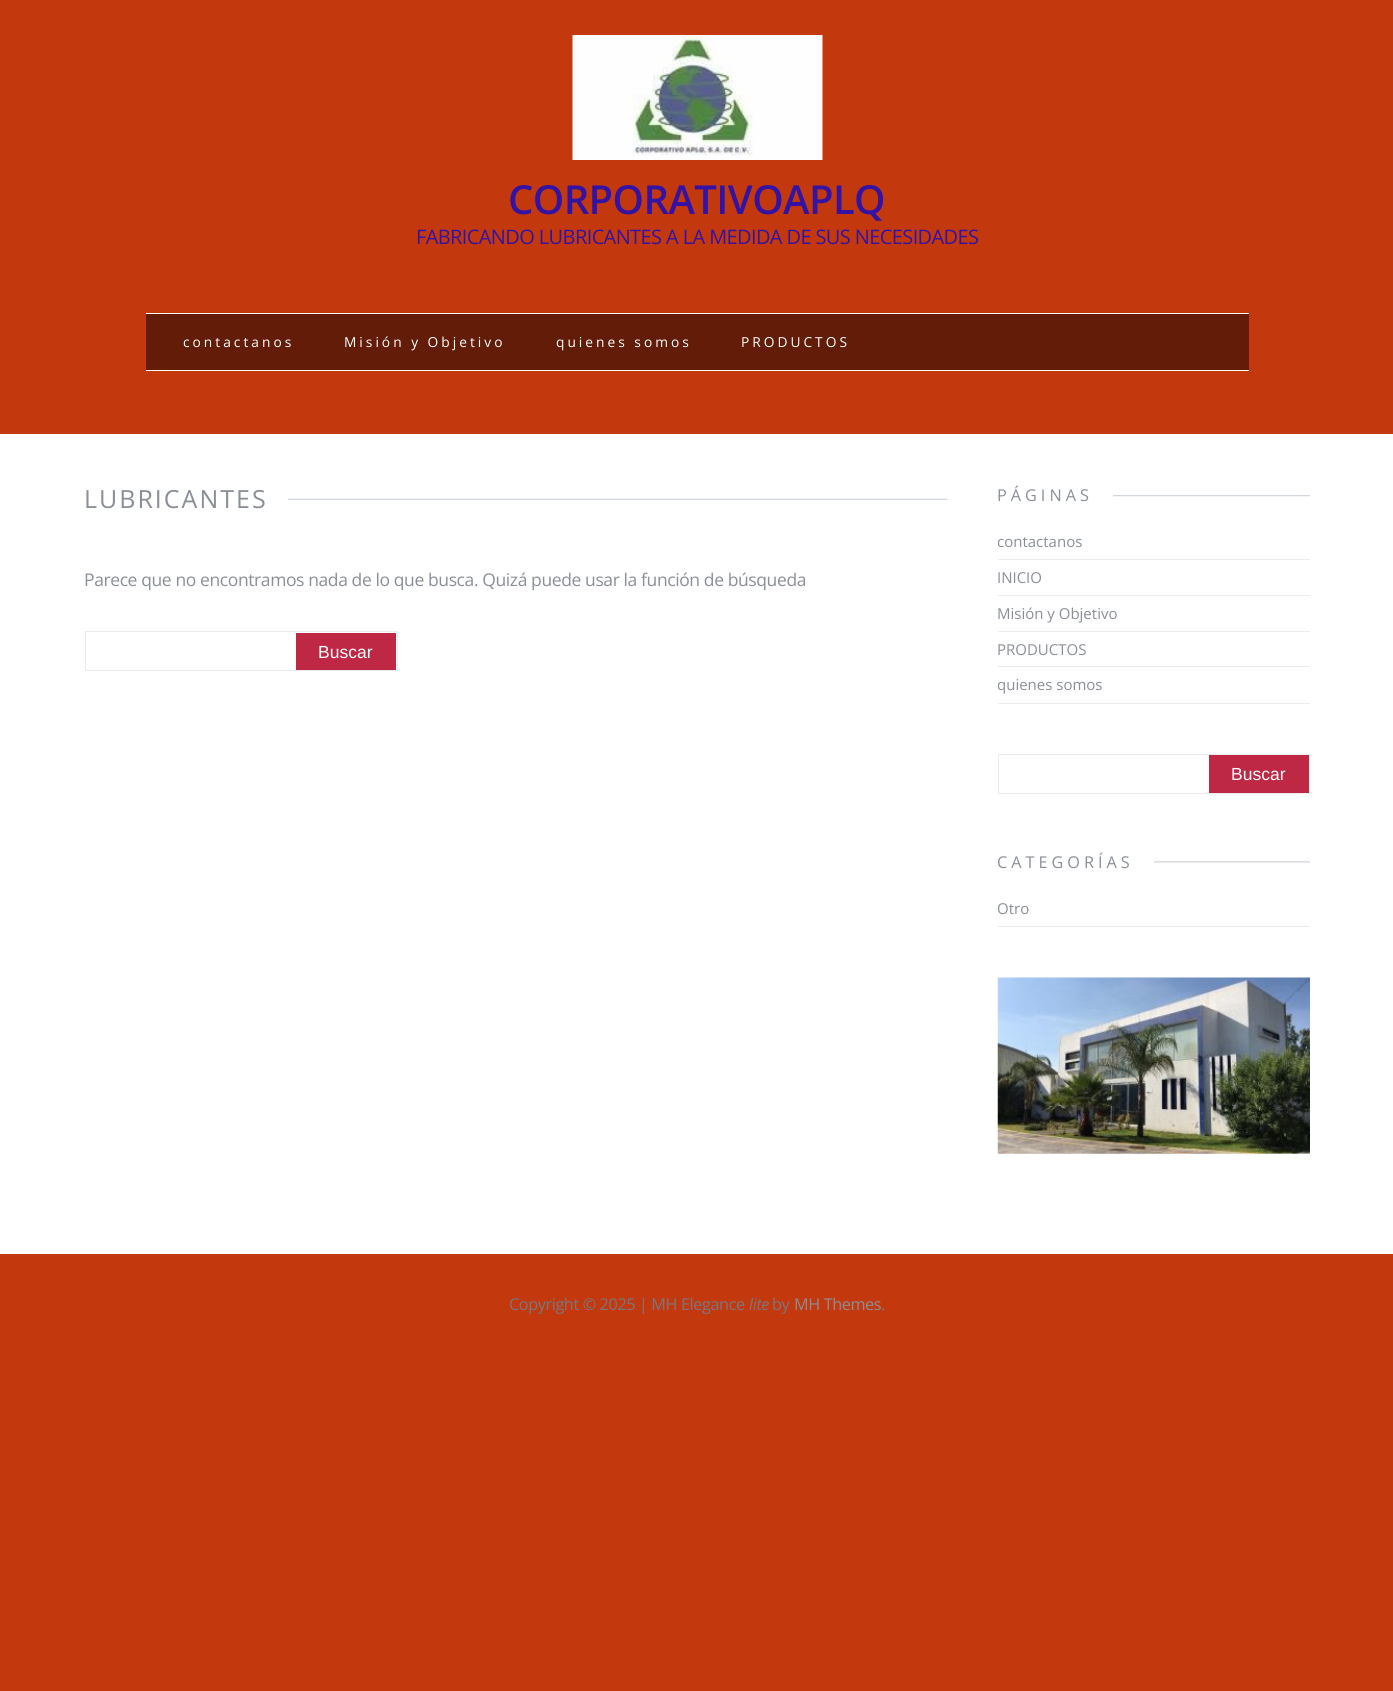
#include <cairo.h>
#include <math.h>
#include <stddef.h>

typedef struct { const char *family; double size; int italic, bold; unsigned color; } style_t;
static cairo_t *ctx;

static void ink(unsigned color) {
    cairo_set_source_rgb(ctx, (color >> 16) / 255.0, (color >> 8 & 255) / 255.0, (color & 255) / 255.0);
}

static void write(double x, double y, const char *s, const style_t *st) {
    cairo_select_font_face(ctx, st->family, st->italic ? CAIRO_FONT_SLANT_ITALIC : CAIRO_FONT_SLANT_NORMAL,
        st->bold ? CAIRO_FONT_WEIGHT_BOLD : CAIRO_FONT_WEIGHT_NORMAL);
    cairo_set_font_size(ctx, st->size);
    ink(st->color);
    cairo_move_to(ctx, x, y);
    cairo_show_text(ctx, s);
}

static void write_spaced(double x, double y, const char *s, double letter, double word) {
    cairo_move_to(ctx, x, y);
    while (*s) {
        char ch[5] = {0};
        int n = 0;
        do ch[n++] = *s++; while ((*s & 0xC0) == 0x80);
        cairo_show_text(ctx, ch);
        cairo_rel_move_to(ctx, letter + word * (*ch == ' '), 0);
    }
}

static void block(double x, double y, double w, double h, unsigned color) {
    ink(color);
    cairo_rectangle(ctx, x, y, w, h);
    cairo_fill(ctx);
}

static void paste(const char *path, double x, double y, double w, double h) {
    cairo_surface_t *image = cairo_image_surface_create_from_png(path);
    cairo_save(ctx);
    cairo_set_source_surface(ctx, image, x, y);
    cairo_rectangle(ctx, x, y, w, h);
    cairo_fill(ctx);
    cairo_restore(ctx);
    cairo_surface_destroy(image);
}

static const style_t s1 = {"Liberation Sans", 17.5, 0, 0, 0xffffff};
static const style_t s2 = {"Open Sans", 15, 0, 0, 0x8a8f97};

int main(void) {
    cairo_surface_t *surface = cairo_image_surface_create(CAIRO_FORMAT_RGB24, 1393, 1691);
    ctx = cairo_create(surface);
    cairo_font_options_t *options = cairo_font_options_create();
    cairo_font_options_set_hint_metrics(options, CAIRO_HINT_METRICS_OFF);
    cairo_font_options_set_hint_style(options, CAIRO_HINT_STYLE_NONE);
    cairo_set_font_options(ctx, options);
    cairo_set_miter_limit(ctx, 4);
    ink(0xc4380d);
    cairo_paint(ctx);
    paste("pic1.png", 572, 35, 251, 125);
    cairo_select_font_face(ctx, "Open Sans SemiBold", CAIRO_FONT_SLANT_NORMAL, CAIRO_FONT_WEIGHT_NORMAL);
    cairo_set_font_size(ctx, 40);
    ink(0x3213a3);
    write_spaced(508, 214, "CORPORATIVOAPLQ", -0.6, 0);
    cairo_select_font_face(ctx, "Open Sans", CAIRO_FONT_SLANT_NORMAL, CAIRO_FONT_WEIGHT_NORMAL);
    cairo_set_font_size(ctx, 20);
    write_spaced(416, 244, "FABRICANDO LUBRICANTES A LA MEDIDA DE SUS NECESIDADES", -0.6, 0);
    block(146, 314, 1103, 56, 0x621c07);
    block(146, 313, 1103, 1, 0xffffff);
    block(146, 370, 1103, 1, 0xffffff);
    cairo_set_font_size(ctx, 13.75);
    write_spaced(183, 347, "contactanos", 3, 0);
    write_spaced(344, 347, "Misión y Objetivo", 3, 0);
    write_spaced(556, 347, "quienes somos", 3, 0);
    write_spaced(741, 347, "PRODUCTOS", 3, 0);
    block(0, 434, 1393, 820, 0xffffff);
    paste("pic2.png", 288, 498, 660, 2);
    cairo_set_font_size(ctx, 25);
    ink(0x8a8f97);
    write_spaced(84, 508, "LUBRICANTES", 2, 0);
    cairo_set_font_size(ctx, 17.5);
    write_spaced(84, 586, "Parece que no encontramos nada de lo que busca. Quizá puede usar la función de búsqueda", -0.4, 0);
    cairo_rectangle(ctx, 85.5, 631.5, 312, 39);
    ink(0xebebeb);
    cairo_set_line_width(ctx, 1);
    cairo_stroke(ctx);
    block(296, 633, 100, 37, 0xbe2844);
    write(318, 658, "Buscar", &s1);
    paste("pic3.png", 997, 495, 313, 2);
    block(998, 495, 115, 2, 0xffffff);
    cairo_select_font_face(ctx, "Open Sans", CAIRO_FONT_SLANT_NORMAL, CAIRO_FONT_WEIGHT_NORMAL);
    cairo_set_font_size(ctx, 16.25);
    ink(0x8a8f97);
    write_spaced(997, 501, "PÁGINAS", 4, 0);
    block(998, 559, 312, 1, 0xebebeb);
    cairo_save(ctx);
    cairo_rectangle(ctx, 998, 484, 312, 720);
    cairo_clip(ctx);
    write(997, 547, "contactanos", &s2);
    cairo_restore(ctx);
    block(998, 595, 312, 1, 0xebebeb);
    write(997, 583, "INICIO", &s2);
    block(998, 631, 312, 1, 0xebebeb);
    write(997, 619, "Misión y Objetivo", &s2);
    block(998, 666, 312, 1, 0xebebeb);
    write(997, 655, "PRODUCTOS", &s2);
    block(998, 703, 312, 1, 0xebebeb);
    cairo_save(ctx);
    cairo_rectangle(ctx, 998, 484, 312, 720);
    cairo_clip(ctx);
    write(997, 690, "quienes somos", &s2);
    cairo_restore(ctx);
    cairo_rectangle(ctx, 998.5, 754.5, 311, 39);
    cairo_stroke(ctx);
    block(1209, 755, 100, 38, 0xbe2844);
    write(1231, 780, "Buscar", &s1);
    paste("pic4.png", 997, 861, 313, 2);
    block(998, 861, 156, 2, 0xffffff);
    cairo_select_font_face(ctx, "Open Sans", CAIRO_FONT_SLANT_NORMAL, CAIRO_FONT_WEIGHT_NORMAL);
    cairo_set_font_size(ctx, 16.25);
    ink(0x8a8f97);
    write_spaced(997, 868, "CATEGORÍAS", 4, 0);
    block(998, 926, 312, 1, 0xebebeb);
    cairo_save(ctx);
    cairo_rectangle(ctx, 998, 484, 312, 720);
    cairo_clip(ctx);
    write(997, 914, "Otro", &s2);
    cairo_restore(ctx);
    paste("pic5.png", 997, 977, 313, 177);
    ink(0x787780);
    write_spaced(509, 1310, "Copyright © 2025 | MH Elegance", -0.4, 0);
    cairo_select_font_face(ctx, "Open Sans", CAIRO_FONT_SLANT_ITALIC, CAIRO_FONT_WEIGHT_NORMAL);
    write_spaced(749, 1310, "lite", -0.4, 0);
    cairo_select_font_face(ctx, "Open Sans", CAIRO_FONT_SLANT_NORMAL, CAIRO_FONT_WEIGHT_NORMAL);
    write_spaced(772, 1310, "by", -0.4, 0);
    ink(0x8a8f97);
    write_spaced(794, 1310, "MH Themes", -0.4, 0);
    ink(0x787780);
    write_spaced(881, 1310, ".", -0.4, 0);
    cairo_surface_write_to_png(surface, "screenshot.png");
    cairo_font_options_destroy(options);
    cairo_destroy(ctx);
    cairo_surface_destroy(surface);
    return 0;
}
